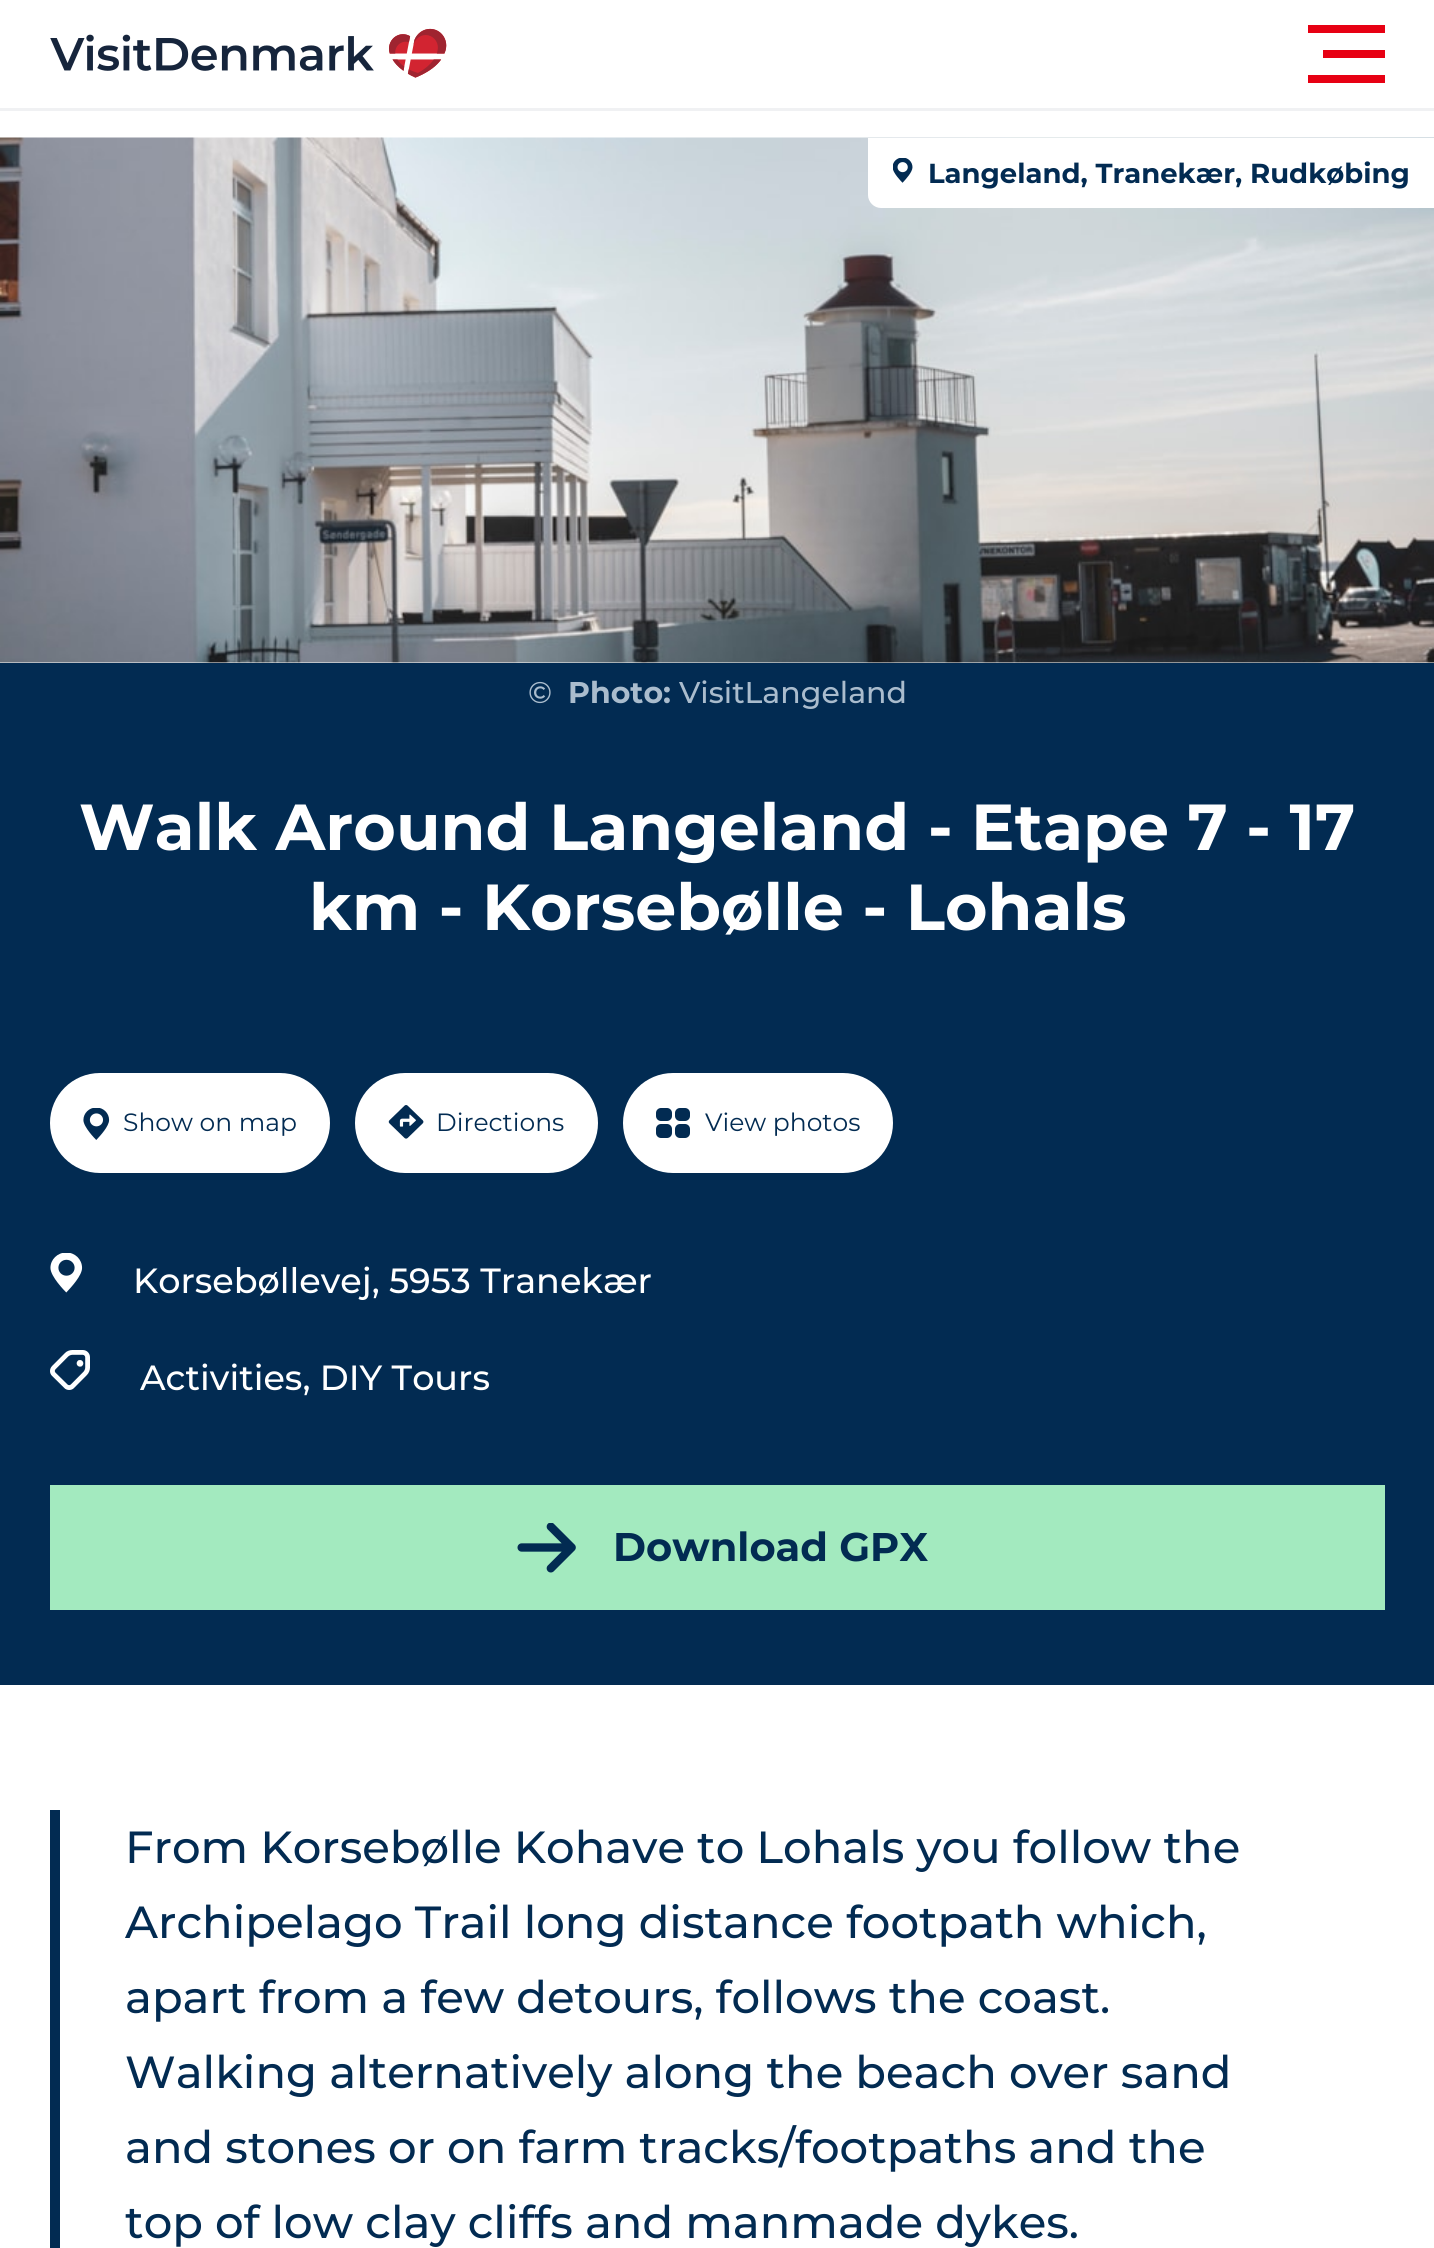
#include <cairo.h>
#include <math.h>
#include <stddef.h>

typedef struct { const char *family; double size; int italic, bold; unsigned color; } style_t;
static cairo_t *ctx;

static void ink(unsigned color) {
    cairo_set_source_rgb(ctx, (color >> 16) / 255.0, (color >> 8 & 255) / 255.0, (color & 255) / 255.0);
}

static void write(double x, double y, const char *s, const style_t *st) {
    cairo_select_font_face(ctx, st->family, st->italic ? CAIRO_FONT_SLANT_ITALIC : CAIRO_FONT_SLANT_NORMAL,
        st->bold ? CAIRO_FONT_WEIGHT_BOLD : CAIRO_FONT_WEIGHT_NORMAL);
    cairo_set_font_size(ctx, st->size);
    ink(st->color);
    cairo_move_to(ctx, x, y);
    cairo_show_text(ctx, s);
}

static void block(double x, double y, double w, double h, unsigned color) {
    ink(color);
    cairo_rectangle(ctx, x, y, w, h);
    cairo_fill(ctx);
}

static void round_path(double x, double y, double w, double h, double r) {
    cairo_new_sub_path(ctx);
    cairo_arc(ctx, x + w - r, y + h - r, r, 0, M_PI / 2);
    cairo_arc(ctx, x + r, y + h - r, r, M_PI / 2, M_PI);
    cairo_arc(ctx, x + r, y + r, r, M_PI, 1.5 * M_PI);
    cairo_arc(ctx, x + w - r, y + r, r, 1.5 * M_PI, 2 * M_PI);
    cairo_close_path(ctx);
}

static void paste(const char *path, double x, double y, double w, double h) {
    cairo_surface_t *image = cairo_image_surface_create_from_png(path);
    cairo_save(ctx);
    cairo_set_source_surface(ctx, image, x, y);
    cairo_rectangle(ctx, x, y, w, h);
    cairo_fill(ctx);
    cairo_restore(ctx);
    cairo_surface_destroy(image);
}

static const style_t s1 = {"Montserrat", 27.5, 0, 1, 0x022b52};
static const style_t s2 = {"Montserrat Medium", 30, 0, 0, 0xaabccd};
static const style_t s3 = {"Montserrat", 30, 0, 1, 0xaabccd};
static const style_t s4 = {"Montserrat", 65, 0, 1, 0xffffff};
static const style_t s5 = {"Montserrat", 25, 0, 0, 0x022b52};
static const style_t s6 = {"Montserrat Medium", 35, 0, 0, 0xffffff};
static const style_t s7 = {"Montserrat", 40, 0, 1, 0x022b52};
static const style_t s8 = {"Montserrat Medium", 45, 0, 0, 0x022b52};

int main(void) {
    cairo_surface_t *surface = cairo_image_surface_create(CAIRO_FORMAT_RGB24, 1434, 2248);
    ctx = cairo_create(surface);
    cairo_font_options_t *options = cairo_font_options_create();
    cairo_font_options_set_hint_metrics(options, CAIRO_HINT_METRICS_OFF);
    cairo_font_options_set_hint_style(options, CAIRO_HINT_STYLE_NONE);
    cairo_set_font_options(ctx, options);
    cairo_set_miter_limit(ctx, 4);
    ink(0xffffff);
    cairo_paint(ctx);
    block(0, 108, 1434, 3, 0xf0f1f3);
    paste("pic1.png", 50, 28, 397, 50);
    block(1308, 25, 77, 8, 0xe70013);
    block(1323, 50, 62, 8, 0xe70013);
    block(1308, 75, 77, 8, 0xe70013);
    paste("pic2.png", 0, 137, 1434, 526);
    ink(0xffffff);
    cairo_new_path(ctx);
    cairo_move_to(ctx, 868, 138);
    cairo_line_to(ctx, 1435, 138);
    cairo_line_to(ctx, 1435, 208);
    cairo_line_to(ctx, 881, 208);
    cairo_curve_to(ctx, 874, 208, 868, 202, 868, 195);
    cairo_close_path(ctx);
    cairo_fill(ctx);
    paste("pic3.png", 893, 158, 20, 25);
    write(928, 183, "Langeland, Tranekær, Rudkøbing", &s1);
    block(0, 663, 1434, 1022, 0x022b52);
    write(528, 703, "©", &s2);
    write(568, 703, "Photo:", &s3);
    write(679, 703, "VisitLangeland", &s2);
    write(79, 850, "Walk Around Langeland - Etape 7 - 17", &s4);
    write(309, 930, "km - Korsebølle - Lohals", &s4);
    round_path(50, 1073, 280, 100, 50);
    cairo_fill(ctx);
    paste("pic4.png", 83, 1108, 27, 32);
    write(123, 1131, "Show on map", &s5);
    ink(0xffffff);
    round_path(355, 1073, 243, 100, 50);
    cairo_fill(ctx);
    paste("pic5.png", 388, 1105, 36, 34);
    write(436, 1131, "Directions", &s5);
    ink(0xffffff);
    round_path(623, 1073, 270, 100, 50);
    cairo_fill(ctx);
    ink(0x022b52);
    round_path(675, 1108, 15, 13, 5);
    cairo_fill(ctx);
    round_path(675, 1124, 15, 14, 5);
    cairo_fill(ctx);
    round_path(656, 1108, 16, 13, 5);
    cairo_fill(ctx);
    round_path(656, 1124, 16, 14, 5);
    cairo_fill(ctx);
    write(705, 1131, "View photos", &s5);
    paste("pic6.png", 50, 1253, 33, 40);
    write(133, 1293, "Korsebøllevej, 5953 Tranekær", &s6);
    paste("pic7.png", 50, 1350, 40, 40);
    write(140, 1390, "Activities, DIY Tours", &s6);
    block(50, 1485, 1335, 125, 0xa3eabf);
    paste("pic8.png", 517, 1523, 59, 50);
    write(613, 1561, "Download GPX", &s7);
    block(50, 1810, 10, 438, 0x022b52);
    write(125, 1863, "From Korsebølle Kohave to Lohals you follow the", &s8);
    write(125, 1938, "Archipelago Trail long distance footpath which,", &s8);
    write(125, 2013, "apart from a few detours, follows the coast.", &s8);
    write(125, 2088, "Walking alternatively along the beach over sand", &s8);
    write(125, 2163, "and stones or on farm tracks/footpaths and the", &s8);
    write(125, 2238, "top of low clay cliffs and manmade dykes.", &s8);
    cairo_surface_write_to_png(surface, "screenshot.png");
    cairo_font_options_destroy(options);
    cairo_destroy(ctx);
    cairo_surface_destroy(surface);
    return 0;
}
